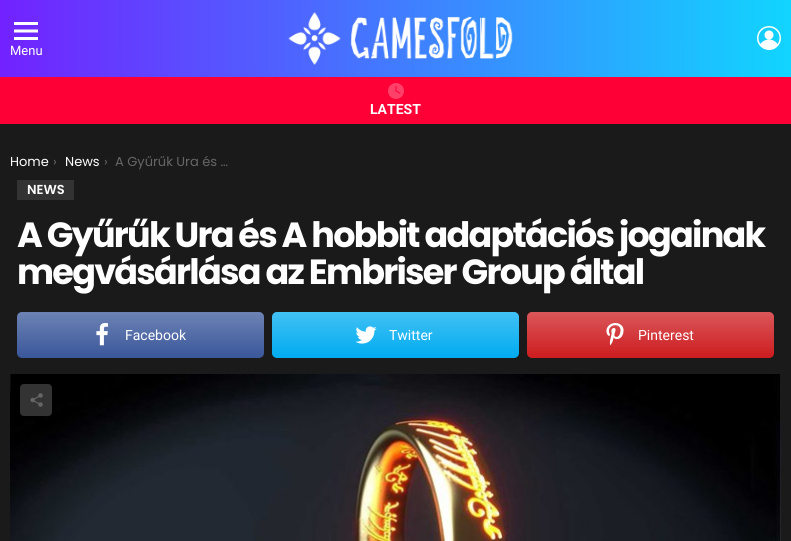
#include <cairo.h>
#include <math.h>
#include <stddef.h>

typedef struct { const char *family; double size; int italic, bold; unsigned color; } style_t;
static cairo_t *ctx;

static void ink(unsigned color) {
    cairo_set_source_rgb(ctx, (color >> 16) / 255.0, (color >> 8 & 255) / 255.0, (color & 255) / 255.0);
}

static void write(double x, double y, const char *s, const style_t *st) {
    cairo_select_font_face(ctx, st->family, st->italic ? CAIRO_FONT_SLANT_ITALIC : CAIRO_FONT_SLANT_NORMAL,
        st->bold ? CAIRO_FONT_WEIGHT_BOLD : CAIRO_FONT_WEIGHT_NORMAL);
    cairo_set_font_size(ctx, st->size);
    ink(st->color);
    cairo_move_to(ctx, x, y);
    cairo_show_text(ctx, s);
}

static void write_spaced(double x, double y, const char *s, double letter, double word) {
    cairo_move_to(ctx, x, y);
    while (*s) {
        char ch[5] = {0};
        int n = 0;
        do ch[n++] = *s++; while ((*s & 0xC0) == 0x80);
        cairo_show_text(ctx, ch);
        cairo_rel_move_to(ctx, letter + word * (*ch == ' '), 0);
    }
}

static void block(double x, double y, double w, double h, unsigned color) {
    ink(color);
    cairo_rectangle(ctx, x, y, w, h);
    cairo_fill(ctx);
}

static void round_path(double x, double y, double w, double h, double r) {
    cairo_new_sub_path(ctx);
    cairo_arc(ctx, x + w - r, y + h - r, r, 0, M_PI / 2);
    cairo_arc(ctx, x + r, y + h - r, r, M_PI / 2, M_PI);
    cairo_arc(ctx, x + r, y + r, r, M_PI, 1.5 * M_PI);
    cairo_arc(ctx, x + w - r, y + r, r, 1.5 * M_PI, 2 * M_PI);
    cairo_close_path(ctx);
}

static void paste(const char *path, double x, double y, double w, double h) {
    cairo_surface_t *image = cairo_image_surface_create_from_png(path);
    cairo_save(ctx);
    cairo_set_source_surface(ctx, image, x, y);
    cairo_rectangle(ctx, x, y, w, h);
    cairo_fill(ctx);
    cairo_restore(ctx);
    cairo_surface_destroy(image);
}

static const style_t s1 = {"Roboto", 13, 0, 0, 0xffffff};
static const style_t s2 = {"Roboto", 14, 0, 1, 0xffffff};
static const style_t s3 = {"Poppins", 13, 0, 0, 0xffffff};
static const style_t s4 = {"Poppins", 13, 0, 0, 0x666666};
static const style_t s5 = {"Poppins SemiBold", 13, 0, 0, 0xffffff};
static const style_t s6 = {"Roboto", 14, 0, 0, 0xffffff};

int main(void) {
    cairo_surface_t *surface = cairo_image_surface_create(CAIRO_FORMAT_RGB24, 791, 541);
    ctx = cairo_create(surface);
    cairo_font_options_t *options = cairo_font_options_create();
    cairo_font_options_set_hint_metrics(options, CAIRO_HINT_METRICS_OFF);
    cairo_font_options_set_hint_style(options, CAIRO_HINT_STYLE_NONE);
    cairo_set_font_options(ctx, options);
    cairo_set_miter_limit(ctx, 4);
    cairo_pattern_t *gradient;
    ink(0x1a1a1a);
    cairo_paint(ctx);
    gradient = cairo_pattern_create_linear(0, 39, 791, 38);
    cairo_pattern_add_color_stop_rgba(gradient, 0, 0.447, 0.133, 1, 1);
    cairo_pattern_add_color_stop_rgba(gradient, 1, 0.067, 0.835, 1, 1);
    cairo_set_source(ctx, gradient);
    cairo_pattern_destroy(gradient);
    cairo_rectangle(ctx, 0, 0, 791, 77);
    cairo_fill(ctx);
    paste("pic1.png", 14, 22, 24, 18);
    write(10, 55, "Menu", &s1);
    paste("pic2.png", 288, 12, 225, 53);
    paste("pic3.png", 757, 26, 24, 24);
    block(0, 77, 791, 47, 0xff0036);
    paste("pic4.png", 388, 83, 16, 16);
    write(370, 114, "LATEST", &s2);
    write(10, 166, "Home", &s3);
    write(53, 166, "›", &s4);
    write(65, 166, "News", &s3);
    write(104, 166, "›", &s4);
    write(115, 166, "A Gyűrűk Ura és …", &s4);
    block(17, 180, 57, 20, 0x333333);
    write(27, 194, "NEWS", &s5);
    cairo_select_font_face(ctx, "Poppins", CAIRO_FONT_SLANT_NORMAL, CAIRO_FONT_WEIGHT_BOLD);
    cairo_set_font_size(ctx, 35);
    write_spaced(17, 247, "A Gyűrűk Ura és A hobbit adaptációs jogainak", -1.75, 0);
    write_spaced(17, 284, "megvásárlása az Embriser Group által", -1.75, 0);
    ink(0x3a579a);
    round_path(17, 312, 247, 46, 5);
    cairo_fill(ctx);
    gradient = cairo_pattern_create_linear(141, 358, 141, 312);
    cairo_pattern_add_color_stop_rgba(gradient, 0, 1, 1, 1, 0);
    cairo_pattern_add_color_stop_rgba(gradient, 1, 1, 1, 1, 0.26);
    cairo_set_source(ctx, gradient);
    cairo_pattern_destroy(gradient);
    round_path(17, 312, 247, 46, 5);
    cairo_fill(ctx);
    paste("pic5.png", 96, 323, 12, 23);
    write(125, 340, "Facebook", &s6);
    ink(0x00abf0);
    round_path(272, 312, 247, 46, 5);
    cairo_fill(ctx);
    gradient = cairo_pattern_create_linear(396, 358, 396, 312);
    cairo_pattern_add_color_stop_rgba(gradient, 0, 1, 1, 1, 0);
    cairo_pattern_add_color_stop_rgba(gradient, 1, 1, 1, 1, 0.26);
    cairo_set_source(ctx, gradient);
    cairo_pattern_destroy(gradient);
    round_path(272, 312, 247, 46, 5);
    cairo_fill(ctx);
    paste("pic6.png", 355, 326, 22, 18);
    write(389, 340, "Twitter", &s6);
    ink(0xcd1c1f);
    round_path(527, 312, 247, 46, 5);
    cairo_fill(ctx);
    gradient = cairo_pattern_create_linear(651, 358, 651, 312);
    cairo_pattern_add_color_stop_rgba(gradient, 0, 1, 1, 1, 0);
    cairo_pattern_add_color_stop_rgba(gradient, 1, 1, 1, 1, 0.26);
    cairo_set_source(ctx, gradient);
    cairo_pattern_destroy(gradient);
    round_path(527, 312, 247, 46, 5);
    cairo_fill(ctx);
    paste("pic7.png", 606, 323, 18, 23);
    write(638, 340, "Pinterest", &s6);
    paste("pic8.png", 10, 374, 771, 167);
    ink(0x333333);
    round_path(20, 384, 32, 32, 4);
    cairo_fill(ctx);
    paste("pic9.png", 30, 393, 13, 14);
    cairo_surface_write_to_png(surface, "screenshot.png");
    cairo_font_options_destroy(options);
    cairo_destroy(ctx);
    cairo_surface_destroy(surface);
    return 0;
}
